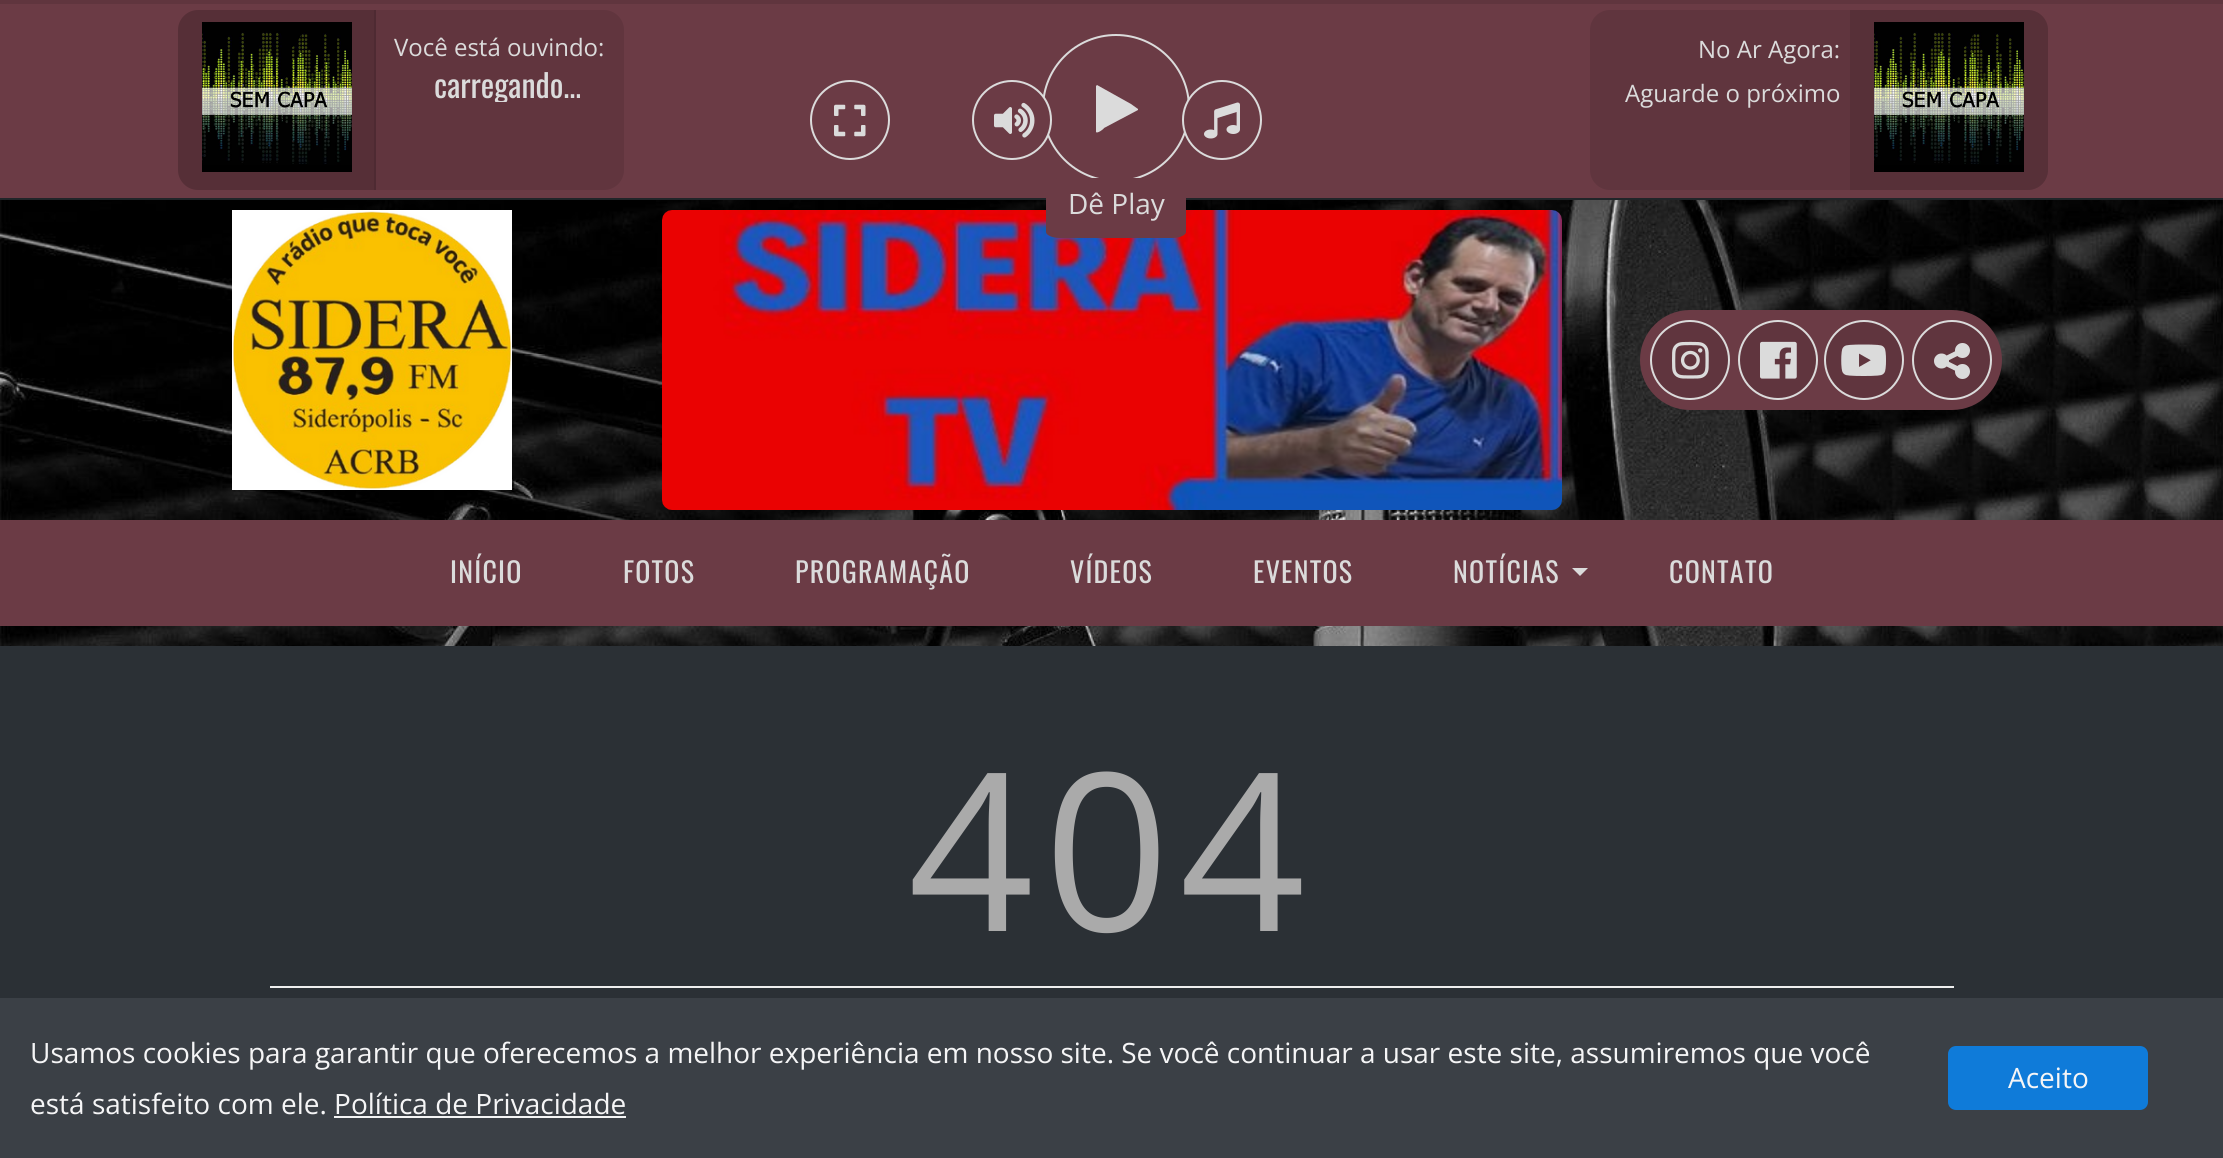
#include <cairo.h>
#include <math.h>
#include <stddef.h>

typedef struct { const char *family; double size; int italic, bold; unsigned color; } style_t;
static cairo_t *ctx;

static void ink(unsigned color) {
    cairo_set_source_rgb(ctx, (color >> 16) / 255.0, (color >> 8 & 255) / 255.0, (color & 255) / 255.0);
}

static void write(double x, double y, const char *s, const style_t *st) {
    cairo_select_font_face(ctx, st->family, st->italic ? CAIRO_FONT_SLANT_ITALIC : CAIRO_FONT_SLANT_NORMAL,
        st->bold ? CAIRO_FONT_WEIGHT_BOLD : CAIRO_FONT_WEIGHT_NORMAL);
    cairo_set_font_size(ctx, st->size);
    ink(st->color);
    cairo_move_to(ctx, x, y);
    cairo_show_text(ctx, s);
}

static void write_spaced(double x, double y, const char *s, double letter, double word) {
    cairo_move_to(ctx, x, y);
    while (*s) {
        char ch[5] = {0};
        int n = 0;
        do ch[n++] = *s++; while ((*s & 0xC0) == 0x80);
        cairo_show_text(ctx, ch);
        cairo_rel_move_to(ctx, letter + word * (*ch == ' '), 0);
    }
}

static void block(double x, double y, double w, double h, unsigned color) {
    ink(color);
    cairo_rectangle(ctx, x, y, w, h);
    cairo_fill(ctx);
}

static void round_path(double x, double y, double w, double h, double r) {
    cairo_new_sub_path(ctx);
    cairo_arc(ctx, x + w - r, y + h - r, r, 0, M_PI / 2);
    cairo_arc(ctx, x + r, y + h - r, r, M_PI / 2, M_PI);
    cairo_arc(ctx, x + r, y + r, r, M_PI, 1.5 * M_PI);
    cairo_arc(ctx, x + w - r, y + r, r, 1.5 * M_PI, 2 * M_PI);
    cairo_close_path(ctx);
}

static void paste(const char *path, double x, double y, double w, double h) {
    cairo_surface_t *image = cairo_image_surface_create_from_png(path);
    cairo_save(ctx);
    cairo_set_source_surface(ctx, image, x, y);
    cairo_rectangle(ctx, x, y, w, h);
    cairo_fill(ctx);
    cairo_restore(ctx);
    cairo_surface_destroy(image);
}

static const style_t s1 = {"Open Sans", 24, 0, 0, 0xdbdbdb};
static const style_t s2 = {"Oswald", 32, 0, 0, 0xdbdbdb};
static const style_t s3 = {"Open Sans", 28, 0, 0, 0xdbdbdb};
static const style_t s4 = {"Open Sans", 28, 0, 0, 0xf5f5f6};

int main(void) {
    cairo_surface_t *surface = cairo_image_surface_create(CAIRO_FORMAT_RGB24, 2223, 1158);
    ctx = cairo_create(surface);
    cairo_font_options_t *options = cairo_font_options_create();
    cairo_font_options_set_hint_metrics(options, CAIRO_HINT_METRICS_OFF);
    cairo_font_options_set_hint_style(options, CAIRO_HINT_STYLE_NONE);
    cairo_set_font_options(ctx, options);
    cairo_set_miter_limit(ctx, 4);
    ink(0xffffff);
    cairo_paint(ctx);
    paste("pic1.png", 0, 200, 2223, 446);
    block(0, 4, 2223, 194, 0x6b3b45);
    block(0, 0, 2223, 4, 0x60353e);
    block(0, 198, 2223, 2, 0x212529);
    ink(0x562f37);
    cairo_new_path(ctx);
    cairo_move_to(ctx, 198, 10);
    cairo_line_to(ctx, 376, 10);
    cairo_line_to(ctx, 376, 190);
    cairo_line_to(ctx, 198, 190);
    cairo_curve_to(ctx, 187, 190, 178, 181, 178, 170);
    cairo_line_to(ctx, 178, 30);
    cairo_curve_to(ctx, 178, 19, 187, 10, 198, 10);
    cairo_close_path(ctx);
    cairo_fill(ctx);
    paste("pic2.png", 202, 22, 150, 150);
    cairo_set_source_rgba(ctx, 0, 0, 0, 0.1);
    cairo_new_path(ctx);
    cairo_move_to(ctx, 374, 10);
    cairo_line_to(ctx, 604, 10);
    cairo_curve_to(ctx, 615, 10, 624, 19, 624, 30);
    cairo_line_to(ctx, 624, 170);
    cairo_curve_to(ctx, 624, 181, 615, 190, 604, 190);
    cairo_line_to(ctx, 374, 190);
    cairo_close_path(ctx);
    cairo_fill(ctx);
    write(394, 56, "Você está ouvindo:", &s1);
    cairo_save(ctx);
    cairo_rectangle(ctx, 396, 66, 208, 36);
    cairo_clip(ctx);
    write(434, 98, "carregando...", &s2);
    cairo_restore(ctx);
    cairo_new_path(ctx);
    cairo_arc(ctx, 850, 120, 39, 0, 2 * M_PI);
    cairo_stroke(ctx);
    paste("pic3.png", 834, 104, 32, 33);
    cairo_arc(ctx, 1116, 108, 73, 0, 2 * M_PI);
    cairo_stroke(ctx);
    ink(0x6b3b45);
    cairo_arc(ctx, 1012, 120, 39, 0, 2 * M_PI);
    cairo_fill_preserve(ctx);
    ink(0xdbdbdb);
    cairo_stroke(ctx);
    paste("pic4.png", 994, 102, 41, 36);
    cairo_new_path(ctx);
    cairo_move_to(ctx, 1138, 110);
    cairo_line_to(ctx, 1104, 128);
    cairo_curve_to(ctx, 1104, 129, 1097, 134, 1096, 132);
    cairo_line_to(ctx, 1096, 86);
    cairo_line_to(ctx, 1097, 85);
    cairo_line_to(ctx, 1131, 104);
    cairo_line_to(ctx, 1138, 109);
    cairo_close_path(ctx);
    cairo_fill(ctx);
    ink(0x6b3b45);
    cairo_arc(ctx, 1222, 120, 39, 0, 2 * M_PI);
    cairo_fill_preserve(ctx);
    ink(0xdbdbdb);
    cairo_stroke(ctx);
    paste("pic5.png", 1204, 102, 36, 37);
    ink(0x60353e);
    round_path(1590, 10, 458, 180, 20);
    cairo_fill(ctx);
    write(1698, 58, "No Ar Agora:", &s1);
    write(1625, 102, "Aguarde o próximo", &s1);
    cairo_set_source_rgba(ctx, 0, 0, 0, 0.1);
    cairo_new_path(ctx);
    cairo_move_to(ctx, 1850, 10);
    cairo_line_to(ctx, 2028, 10);
    cairo_curve_to(ctx, 2039, 10, 2048, 19, 2048, 30);
    cairo_line_to(ctx, 2048, 170);
    cairo_curve_to(ctx, 2048, 181, 2039, 190, 2028, 190);
    cairo_line_to(ctx, 1850, 190);
    cairo_close_path(ctx);
    cairo_fill(ctx);
    paste("pic6.png", 1874, 22, 150, 150);
    paste("pic8.png", 662, 210, 900, 300);
    ink(0x6b3b45);
    cairo_new_path(ctx);
    cairo_move_to(ctx, 1060, 178);
    cairo_line_to(ctx, 1172, 178);
    cairo_curve_to(ctx, 1180, 178, 1186, 181, 1186, 184);
    cairo_line_to(ctx, 1186, 232);
    cairo_curve_to(ctx, 1186, 235, 1180, 238, 1172, 238);
    cairo_line_to(ctx, 1060, 238);
    cairo_curve_to(ctx, 1052, 238, 1046, 235, 1046, 232);
    cairo_line_to(ctx, 1046, 184);
    cairo_curve_to(ctx, 1046, 181, 1052, 178, 1060, 178);
    cairo_close_path(ctx);
    cairo_fill(ctx);
    write(1068, 214, "Dê Play", &s3);
    paste("pic7.png", 232, 210, 280, 280);
    ink(0x6b3b45);
    round_path(1640, 310, 362, 100, 50);
    cairo_fill(ctx);
    ink(0x60353e);
    cairo_arc(ctx, 1690, 360, 39, 0, 2 * M_PI);
    cairo_fill_preserve(ctx);
    ink(0xdbdbdb);
    cairo_stroke(ctx);
    paste("pic9.png", 1672, 341, 37, 38);
    ink(0x60353e);
    cairo_arc(ctx, 1778, 360, 39, 0, 2 * M_PI);
    cairo_fill_preserve(ctx);
    ink(0xdbdbdb);
    cairo_stroke(ctx);
    paste("pic10.png", 1760, 341, 37, 38);
    ink(0x60353e);
    cairo_arc(ctx, 1864, 360, 39, 0, 2 * M_PI);
    cairo_fill_preserve(ctx);
    ink(0xdbdbdb);
    cairo_stroke(ctx);
    paste("pic11.png", 1841, 344, 45, 32);
    ink(0x60353e);
    cairo_arc(ctx, 1952, 360, 39, 0, 2 * M_PI);
    cairo_fill_preserve(ctx);
    ink(0xdbdbdb);
    cairo_stroke(ctx);
    paste("pic12.png", 1934, 343, 36, 36);
    block(0, 520, 2223, 106, 0x6b3b45);
    cairo_select_font_face(ctx, "Oswald", CAIRO_FONT_SLANT_NORMAL, CAIRO_FONT_WEIGHT_NORMAL);
    ink(0xdbdbdb);
    write_spaced(450, 583, "INÍCIO", 1.25, 0);
    write_spaced(623, 583, "FOTOS", 1.25, 0);
    write_spaced(795, 583, "PROGRAMAÇÃO", 1.25, 0);
    write_spaced(1070, 583, "VÍDEOS", 1.25, 0);
    write_spaced(1253, 583, "EVENTOS", 1.25, 0);
    write_spaced(1453, 583, "NOTÍCIAS", 1.25, 0);
    cairo_new_path(ctx);
    cairo_move_to(ctx, 1572, 568);
    cairo_line_to(ctx, 1588, 568);
    cairo_line_to(ctx, 1580, 576);
    cairo_close_path(ctx);
    cairo_fill(ctx);
    write_spaced(1669, 583, "CONTATO", 1.25, 0);
    block(0, 646, 2223, 512, 0x2b3035);
    cairo_select_font_face(ctx, "Open Sans", CAIRO_FONT_SLANT_NORMAL, CAIRO_FONT_WEIGHT_NORMAL);
    cairo_set_font_size(ctx, 220);
    ink(0xaaaaaa);
    write_spaced(908, 931, "404", 10, 0);
    block(270, 986, 1684, 2, 0xeeeeee);
    cairo_set_source_rgba(ctx, 0.235, 0.255, 0.282, 0.95);
    cairo_rectangle(ctx, 0, 998, 2223, 160);
    cairo_fill(ctx);
    write(30, 1063, "Usamos cookies para garantir que oferecemos a melhor experiência em nosso site. Se você continuar a usar este site, assumiremos que você", &s4);
    write(30, 1114, "está satisfeito com ele. Política de Privacidade", &s4);
    block(334, 1116, 292, 2, 0xf4f5f5);
    ink(0x0f7bd9);
    round_path(1949, 1047, 198, 62, 7);
    cairo_fill_preserve(ctx);
    cairo_stroke(ctx);
    write(2008, 1088, "Aceito", &s4);
    cairo_surface_write_to_png(surface, "screenshot.png");
    cairo_font_options_destroy(options);
    cairo_destroy(ctx);
    cairo_surface_destroy(surface);
    return 0;
}
